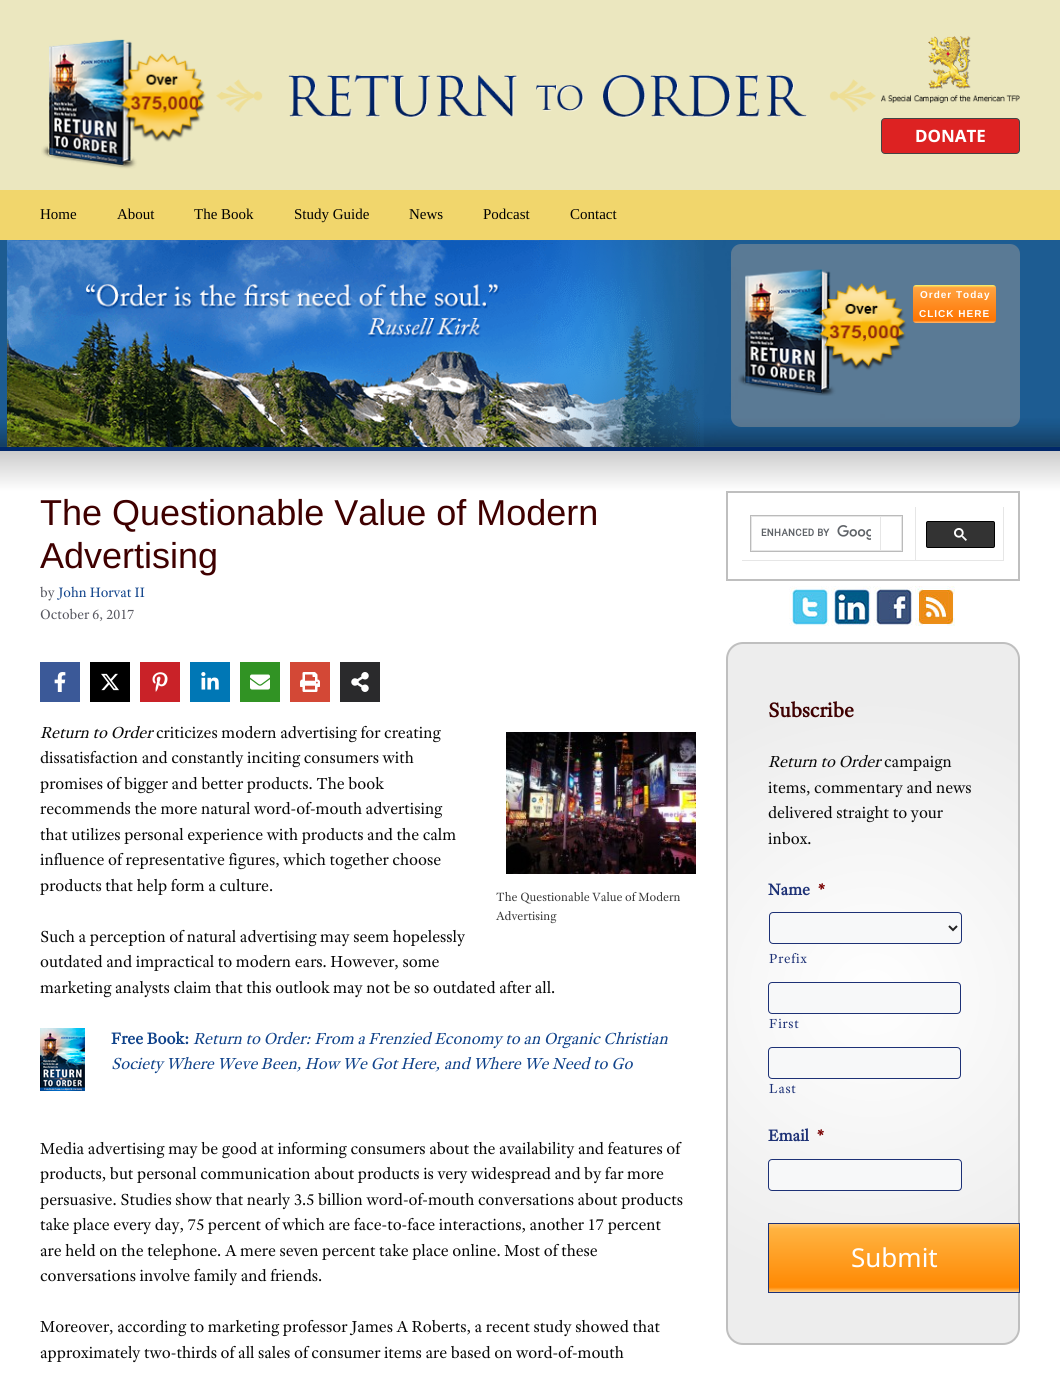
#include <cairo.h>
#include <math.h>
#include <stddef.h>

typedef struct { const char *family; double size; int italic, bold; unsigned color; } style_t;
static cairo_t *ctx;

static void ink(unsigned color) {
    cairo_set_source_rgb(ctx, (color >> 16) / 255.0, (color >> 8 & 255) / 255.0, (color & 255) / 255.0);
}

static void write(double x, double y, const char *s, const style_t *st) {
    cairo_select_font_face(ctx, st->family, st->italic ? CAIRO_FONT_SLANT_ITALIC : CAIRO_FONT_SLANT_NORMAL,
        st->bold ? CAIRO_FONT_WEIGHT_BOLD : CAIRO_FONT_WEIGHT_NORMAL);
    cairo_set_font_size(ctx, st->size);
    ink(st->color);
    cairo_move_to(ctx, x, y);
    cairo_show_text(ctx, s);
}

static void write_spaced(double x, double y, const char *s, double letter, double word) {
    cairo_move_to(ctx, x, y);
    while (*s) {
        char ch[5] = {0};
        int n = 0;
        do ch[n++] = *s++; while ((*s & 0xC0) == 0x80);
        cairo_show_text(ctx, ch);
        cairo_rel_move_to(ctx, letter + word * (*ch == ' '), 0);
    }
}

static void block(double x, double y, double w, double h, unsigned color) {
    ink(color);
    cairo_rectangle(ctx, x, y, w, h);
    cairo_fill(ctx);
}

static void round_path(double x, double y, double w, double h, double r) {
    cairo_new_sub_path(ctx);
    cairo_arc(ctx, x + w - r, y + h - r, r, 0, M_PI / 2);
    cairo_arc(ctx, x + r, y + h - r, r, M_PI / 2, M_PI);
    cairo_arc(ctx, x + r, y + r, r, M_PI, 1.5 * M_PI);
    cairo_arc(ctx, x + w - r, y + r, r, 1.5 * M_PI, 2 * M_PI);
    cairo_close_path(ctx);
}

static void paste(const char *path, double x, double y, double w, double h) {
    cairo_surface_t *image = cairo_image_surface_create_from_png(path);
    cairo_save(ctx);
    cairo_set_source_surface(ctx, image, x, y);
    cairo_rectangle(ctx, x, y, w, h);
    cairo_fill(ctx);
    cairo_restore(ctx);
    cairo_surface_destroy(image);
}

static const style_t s1 = {"Noto Sans", 17, 0, 1, 0xffffff};
static const style_t s2 = {"Liberation Serif", 15, 0, 0, 0x000000};
static const style_t s3 = {"Liberation Sans", 36, 0, 0, 0x3f0000};
static const style_t s4 = {"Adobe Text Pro", 14.5, 0, 0, 0x575760};
static const style_t s5 = {"Adobe Text Pro", 14.5, 0, 0, 0x0f428a};
static const style_t s6 = {"Adobe Text Pro", 17, 1, 0, 0x080808};
static const style_t s7 = {"Adobe Text Pro", 17, 0, 0, 0x080808};
static const style_t s8 = {"Adobe Text Pro", 12.75, 0, 0, 0x393939};
static const style_t s9 = {"Adobe Text Pro", 17, 0, 1, 0x0f428a};
static const style_t s10 = {"Adobe Text Pro", 17, 1, 0, 0x0f428a};
static const style_t s11 = {"Adobe Text Pro", 21.25, 0, 1, 0x3f0000};
static const style_t s12 = {"Adobe Text Pro", 17, 0, 1, 0x1d3176};
static const style_t s13 = {"Adobe Text Pro", 17, 0, 1, 0x790000};
static const style_t s14 = {"Noto Sans", 26, 0, 0, 0xffffff};

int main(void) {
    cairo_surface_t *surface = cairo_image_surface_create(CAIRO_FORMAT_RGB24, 1060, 1375);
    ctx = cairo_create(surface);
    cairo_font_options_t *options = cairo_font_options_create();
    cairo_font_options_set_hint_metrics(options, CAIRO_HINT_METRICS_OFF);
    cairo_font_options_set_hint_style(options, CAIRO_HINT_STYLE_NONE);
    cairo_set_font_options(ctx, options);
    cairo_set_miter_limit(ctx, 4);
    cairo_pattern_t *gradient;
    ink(0xf1d66c);
    cairo_paint(ctx);
    block(0, 0, 1060, 190, 0xebe7bf);
    paste("pic1.png", 41, 39, 165, 130);
    paste("pic2.png", 216, 75, 660, 43);
    paste("pic3.png", 881, 36, 139, 67);
    ink(0xdd2222);
    round_path(881.5, 118.5, 138, 35, 3.5);
    cairo_fill_preserve(ctx);
    ink(0x444444);
    cairo_set_line_width(ctx, 1);
    cairo_stroke(ctx);
    write(915, 142, "DONATE", &s1);
    block(0, 447, 1060, 4, 0x002769);
    write(40, 219, "Home", &s2);
    write(117, 219, "About", &s2);
    write(194, 219, "The Book", &s2);
    write(294, 219, "Study Guide", &s2);
    write(409, 219, "News", &s2);
    write(483, 219, "Podcast", &s2);
    write(570, 219, "Contact", &s2);
    paste("pic4.png", 0, 240, 1060, 207);
    paste("pic5.png", 7, 240, 697, 207);
    cairo_set_source_rgba(ctx, 0.6, 0.6, 0.6, 0.5);
    round_path(731, 244, 289, 183, 10);
    cairo_fill(ctx);
    paste("pic6.png", 738, 269, 169, 127);
    gradient = cairo_pattern_create_linear(955, 285, 955, 323);
    cairo_pattern_add_color_stop_rgba(gradient, 0, 0.969, 0.969, 0.439, 1);
    cairo_pattern_add_color_stop_rgba(gradient, 0.01, 0.973, 0.922, 0.412, 1);
    cairo_pattern_add_color_stop_rgba(gradient, 0.07, 1, 0.639, 0.255, 1);
    cairo_pattern_add_color_stop_rgba(gradient, 0.93, 1, 0.459, 0.008, 1);
    cairo_pattern_add_color_stop_rgba(gradient, 1, 1, 0.729, 0.439, 1);
    cairo_set_source(ctx, gradient);
    cairo_pattern_destroy(gradient);
    round_path(913, 285, 83, 38, 3);
    cairo_fill(ctx);
    cairo_select_font_face(ctx, "Liberation Sans", CAIRO_FONT_SLANT_NORMAL, CAIRO_FONT_WEIGHT_BOLD);
    cairo_set_font_size(ctx, 10);
    ink(0xffffff);
    write_spaced(920, 298, "Order Today", 1, 0);
    write_spaced(919, 317, "CLICK HERE", 1, 0);
    gradient = cairo_pattern_create_linear(530, 451, 530, 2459);
    cairo_pattern_add_color_stop_rgba(gradient, 0, 0.8, 0.8, 0.8, 1);
    cairo_pattern_add_color_stop_rgba(gradient, 0.02, 1, 1, 1, 1);
    cairo_set_source(ctx, gradient);
    cairo_pattern_destroy(gradient);
    cairo_rectangle(ctx, 0, 451, 1060, 924);
    cairo_fill(ctx);
    write(40, 525, "The Questionable Value of Modern", &s3);
    write(40, 568, "Advertising", &s3);
    write(40, 597, "by", &s4);
    write(58, 597, "John Horvat II", &s5);
    write(40, 619, "October 6, 2017", &s4);
    block(40, 662, 40, 40, 0x3b5998);
    paste("pic7.png", 54, 672, 12, 20);
    block(90, 662, 40, 40, 0x000000);
    paste("pic8.png", 101, 673, 18, 18);
    block(140, 662, 40, 40, 0xc92228);
    paste("pic9.png", 152, 672, 16, 20);
    block(190, 662, 40, 40, 0x0077b5);
    paste("pic10.png", 201, 672, 18, 18);
    block(240, 662, 40, 40, 0x319324);
    paste("pic11.png", 250, 674, 20, 16);
    block(290, 662, 40, 40, 0xd34836);
    paste("pic12.png", 300, 672, 20, 20);
    block(340, 662, 40, 40, 0x2a2a2c);
    paste("pic13.png", 351, 672, 18, 20);
    write(40, 738, "Return to Order", &s6);
    write(156, 738, "criticizes modern advertising for creating", &s7);
    write(40, 763, "dissatisfaction and constantly inciting consumers with", &s7);
    write(40, 789, "promises of bigger and better products. The book", &s7);
    write(40, 814, "recommends the more natural word-of-mouth advertising", &s7);
    write(40, 840, "that utilizes personal experience with products and the calm", &s7);
    write(40, 865, "influence of representative figures, which together choose", &s7);
    write(40, 891, "products that help form a culture.", &s7);
    paste("pic14.png", 506, 732, 190, 142);
    write(496, 901, "The Questionable Value of Modern", &s8);
    write(496, 920, "Advertising", &s8);
    write(40, 942, "Such a perception of natural advertising may seem hopelessly", &s7);
    write(40, 967, "outdated and impractical to modern ears. However, some", &s7);
    write(40, 993, "marketing analysts claim that this outlook may not be so outdated after all.", &s7);
    paste("pic15.png", 40, 1028, 45, 63);
    write(111, 1044, "Free Book:", &s9);
    write(193, 1044, "Return to Order: From a Frenzied Economy to an Organic Christian", &s10);
    write(111, 1069, "Society Where Weve Been, How We Got Here, and Where We Need to Go", &s10);
    write(40, 1154, "Media advertising may be good at informing consumers about the availability and features of", &s7);
    write(40, 1179, "products, but personal communication about products is very widespread and by far more", &s7);
    write(40, 1205, "persuasive. Studies show that nearly 3.5 billion word-of-mouth conversations about products", &s7);
    write(40, 1230, "take place every day, 75 percent of which are face-to-face interactions, another 17 percent", &s7);
    write(40, 1256, "are held on the telephone. A mere seven percent take place online. Most of these", &s7);
    write(40, 1281, "conversations involve family and friends.", &s7);
    write(40, 1332, "Moreover, according to marketing professor James A Roberts, a recent study showed that", &s7);
    write(40, 1358, "approximately two-thirds of all sales of consumer items are based on word-of-mouth", &s7);
    cairo_rectangle(ctx, 727, 492, 292, 88);
    ink(0xbfbfbf);
    cairo_set_line_width(ctx, 2);
    cairo_stroke(ctx);
    ink(0xe6e6e6);
    cairo_new_path(ctx);
    cairo_move_to(ctx, 916, 507);
    cairo_line_to(ctx, 916, 561);
    cairo_line_to(ctx, 915, 560);
    cairo_line_to(ctx, 915, 507);
    cairo_close_path(ctx);
    cairo_fill(ctx);
    cairo_set_source_rgba(ctx, 0, 0, 0, 0.1);
    cairo_new_path(ctx);
    cairo_move_to(ctx, 916, 561);
    cairo_line_to(ctx, 742, 561);
    cairo_line_to(ctx, 742, 560);
    cairo_line_to(ctx, 915, 560);
    cairo_close_path(ctx);
    cairo_fill(ctx);
    cairo_rectangle(ctx, 750.5, 515.5, 152, 36);
    ink(0xbbbbbb);
    cairo_set_line_width(ctx, 1);
    cairo_stroke(ctx);
    ink(0xe6e6e6);
    cairo_new_path(ctx);
    cairo_move_to(ctx, 751, 516);
    cairo_line_to(ctx, 902, 516);
    cairo_line_to(ctx, 902, 517);
    cairo_line_to(ctx, 752, 517);
    cairo_close_path(ctx);
    cairo_fill(ctx);
    cairo_set_source_rgba(ctx, 0, 0, 0, 0.1);
    cairo_new_path(ctx);
    cairo_move_to(ctx, 751, 551);
    cairo_line_to(ctx, 751, 516);
    cairo_line_to(ctx, 752, 517);
    cairo_line_to(ctx, 752, 551);
    cairo_close_path(ctx);
    cairo_fill(ctx);
    ink(0xe6e6e6);
    cairo_new_path(ctx);
    cairo_move_to(ctx, 881, 517);
    cairo_line_to(ctx, 881, 551);
    cairo_line_to(ctx, 880, 550);
    cairo_line_to(ctx, 880, 517);
    cairo_close_path(ctx);
    cairo_fill(ctx);
    cairo_set_source_rgba(ctx, 0, 0, 0, 0.1);
    cairo_new_path(ctx);
    cairo_move_to(ctx, 881, 551);
    cairo_line_to(ctx, 752, 551);
    cairo_line_to(ctx, 752, 550);
    cairo_line_to(ctx, 880, 550);
    cairo_close_path(ctx);
    cairo_fill(ctx);
    paste("pic16.png", 761, 525, 110, 15);
    ink(0xe6e6e6);
    cairo_new_path(ctx);
    cairo_move_to(ctx, 902, 517);
    cairo_line_to(ctx, 902, 551);
    cairo_line_to(ctx, 901, 550);
    cairo_line_to(ctx, 901, 517);
    cairo_close_path(ctx);
    cairo_fill(ctx);
    cairo_set_source_rgba(ctx, 0, 0, 0, 0.1);
    cairo_new_path(ctx);
    cairo_move_to(ctx, 902, 551);
    cairo_line_to(ctx, 881, 551);
    cairo_line_to(ctx, 881, 550);
    cairo_line_to(ctx, 901, 550);
    cairo_close_path(ctx);
    cairo_fill(ctx);
    ink(0xe6e6e6);
    cairo_new_path(ctx);
    cairo_move_to(ctx, 1004, 507);
    cairo_line_to(ctx, 1004, 561);
    cairo_line_to(ctx, 1003, 560);
    cairo_line_to(ctx, 1003, 507);
    cairo_close_path(ctx);
    cairo_fill(ctx);
    cairo_set_source_rgba(ctx, 0, 0, 0, 0.1);
    cairo_new_path(ctx);
    cairo_move_to(ctx, 1004, 561);
    cairo_line_to(ctx, 916, 561);
    cairo_line_to(ctx, 916, 560);
    cairo_line_to(ctx, 1003, 560);
    cairo_close_path(ctx);
    cairo_fill(ctx);
    ink(0x333333);
    round_path(926.5, 521.5, 68, 26, 1.5);
    cairo_fill_preserve(ctx);
    ink(0x000000);
    cairo_stroke(ctx);
    paste("pic17.png", 954, 528, 13, 13);
    paste("pic18.png", 789, 586, 40, 40);
    paste("pic19.png", 831, 586, 40, 40);
    paste("pic20.png", 873, 586, 40, 40);
    paste("pic21.png", 915, 586, 40, 40);
    cairo_save(ctx);
    round_path(726, 642, 294, 703, 17);
    cairo_clip(ctx);
    gradient = cairo_pattern_create_radial(873, 994, 0, 873, 994, 350);
    cairo_pattern_add_color_stop_rgba(gradient, 0, 1, 1, 1, 1);
    cairo_pattern_add_color_stop_rgba(gradient, 0.85, 0.929, 0.929, 0.929, 1);
    cairo_set_source(ctx, gradient);
    cairo_pattern_destroy(gradient);
    cairo_rectangle(ctx, 728, 644, 290, 699);
    cairo_fill(ctx);
    cairo_restore(ctx);
    round_path(727, 643, 292, 701, 16);
    ink(0xbfbfbf);
    cairo_set_line_width(ctx, 2);
    cairo_stroke(ctx);
    write(768, 717, "Subscribe", &s11);
    write(768, 767, "Return to Order", &s6);
    write(884, 767, "campaign", &s7);
    write(768, 793, "items, commentary and news", &s7);
    write(768, 818, "delivered straight to your", &s7);
    write(768, 844, "inbox.", &s7);
    write(768, 895, "Name", &s12);
    write(818, 895, "*", &s13);
    ink(0xf7f8f9);
    round_path(769.5, 912.5, 192, 31, 3.5);
    cairo_fill_preserve(ctx);
    ink(0x1d3176);
    cairo_set_line_width(ctx, 1);
    cairo_stroke(ctx);
    cairo_new_path(ctx);
    cairo_move_to(ctx, 949, 926);
    cairo_line_to(ctx, 953, 930);
    cairo_line_to(ctx, 957, 926);
    ink(0x222222);
    cairo_set_line_width(ctx, 2);
    cairo_stroke(ctx);
    cairo_select_font_face(ctx, "Adobe Text Pro", CAIRO_FONT_SLANT_NORMAL, CAIRO_FONT_WEIGHT_NORMAL);
    cairo_set_font_size(ctx, 14);
    ink(0x1d3176);
    write_spaced(769, 963, "Prefix", 0.75, 0);
    ink(0xf7f8f9);
    round_path(768.5, 982.5, 192, 31, 3.5);
    cairo_fill_preserve(ctx);
    ink(0x1d3176);
    cairo_set_line_width(ctx, 1);
    cairo_stroke(ctx);
    write_spaced(769, 1028, "First", 0.75, 0);
    ink(0xf7f8f9);
    round_path(768.5, 1047.5, 192, 31, 3.5);
    cairo_fill_preserve(ctx);
    ink(0x1d3176);
    cairo_stroke(ctx);
    write_spaced(769, 1093, "Last", 0.75, 0);
    write(768, 1141, "Email", &s12);
    write(817, 1141, "*", &s13);
    ink(0xf7f8f9);
    round_path(768.5, 1159.5, 193, 31, 3.5);
    cairo_fill_preserve(ctx);
    ink(0x1d3176);
    cairo_stroke(ctx);
    gradient = cairo_pattern_create_linear(894, 1224, 894, 1292);
    cairo_pattern_add_color_stop_rgba(gradient, 0, 1, 0.776, 0.443, 1);
    cairo_pattern_add_color_stop_rgba(gradient, 0.07, 1, 0.702, 0.255, 1);
    cairo_pattern_add_color_stop_rgba(gradient, 0.93, 1, 0.537, 0.012, 1);
    cairo_pattern_add_color_stop_rgba(gradient, 1, 1, 0.776, 0.443, 1);
    cairo_set_source(ctx, gradient);
    cairo_pattern_destroy(gradient);
    cairo_rectangle(ctx, 769, 1224, 250, 68);
    cairo_fill(ctx);
    cairo_rectangle(ctx, 768.5, 1223.5, 251, 69);
    ink(0x1d3176);
    cairo_stroke(ctx);
    write(851, 1267, "Submit", &s14);
    cairo_surface_write_to_png(surface, "screenshot.png");
    cairo_font_options_destroy(options);
    cairo_destroy(ctx);
    cairo_surface_destroy(surface);
    return 0;
}
